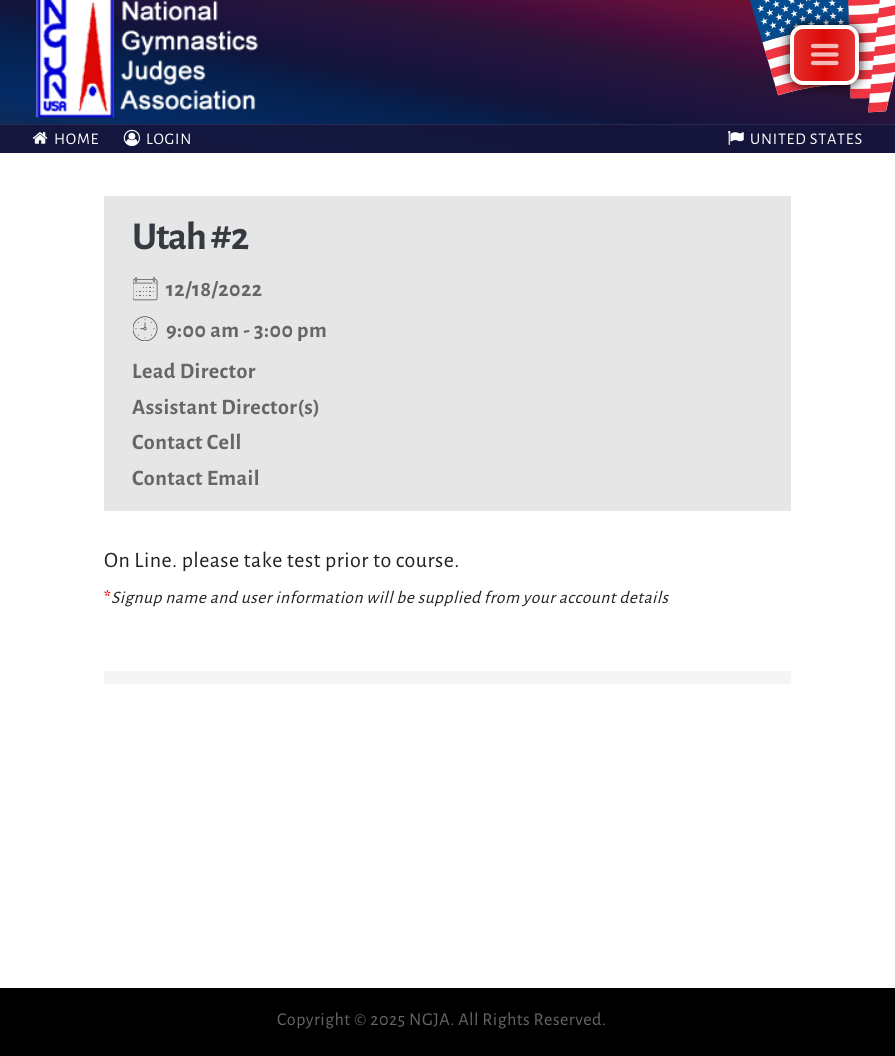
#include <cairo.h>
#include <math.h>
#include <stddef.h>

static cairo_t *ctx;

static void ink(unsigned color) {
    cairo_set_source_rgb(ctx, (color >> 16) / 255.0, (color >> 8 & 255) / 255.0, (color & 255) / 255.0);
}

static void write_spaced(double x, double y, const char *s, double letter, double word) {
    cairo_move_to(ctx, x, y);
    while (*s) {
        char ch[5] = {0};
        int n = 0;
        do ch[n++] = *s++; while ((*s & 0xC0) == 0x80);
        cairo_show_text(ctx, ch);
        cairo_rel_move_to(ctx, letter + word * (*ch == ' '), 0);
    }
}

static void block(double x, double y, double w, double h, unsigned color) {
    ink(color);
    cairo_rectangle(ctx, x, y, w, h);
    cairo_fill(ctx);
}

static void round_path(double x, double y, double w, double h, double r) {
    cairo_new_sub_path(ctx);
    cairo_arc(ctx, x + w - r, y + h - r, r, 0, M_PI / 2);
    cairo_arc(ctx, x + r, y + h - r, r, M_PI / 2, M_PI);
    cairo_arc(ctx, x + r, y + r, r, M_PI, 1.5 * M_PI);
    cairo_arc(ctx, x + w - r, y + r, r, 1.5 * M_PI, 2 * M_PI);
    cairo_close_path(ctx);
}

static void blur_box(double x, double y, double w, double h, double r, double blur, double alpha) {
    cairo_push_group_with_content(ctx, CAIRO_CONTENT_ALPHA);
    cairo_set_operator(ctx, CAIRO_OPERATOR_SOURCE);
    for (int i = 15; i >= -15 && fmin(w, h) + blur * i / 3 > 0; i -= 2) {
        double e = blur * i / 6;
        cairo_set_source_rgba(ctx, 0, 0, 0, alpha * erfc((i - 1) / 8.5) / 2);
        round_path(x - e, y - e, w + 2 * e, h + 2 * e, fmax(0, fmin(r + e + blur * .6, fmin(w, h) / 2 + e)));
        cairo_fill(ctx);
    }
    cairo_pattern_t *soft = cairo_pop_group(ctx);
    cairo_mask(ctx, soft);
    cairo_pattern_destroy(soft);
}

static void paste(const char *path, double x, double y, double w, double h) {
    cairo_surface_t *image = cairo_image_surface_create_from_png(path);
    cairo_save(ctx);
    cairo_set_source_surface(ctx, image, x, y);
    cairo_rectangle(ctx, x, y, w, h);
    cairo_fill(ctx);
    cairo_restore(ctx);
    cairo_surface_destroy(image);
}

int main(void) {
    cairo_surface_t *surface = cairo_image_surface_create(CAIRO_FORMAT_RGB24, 895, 1056);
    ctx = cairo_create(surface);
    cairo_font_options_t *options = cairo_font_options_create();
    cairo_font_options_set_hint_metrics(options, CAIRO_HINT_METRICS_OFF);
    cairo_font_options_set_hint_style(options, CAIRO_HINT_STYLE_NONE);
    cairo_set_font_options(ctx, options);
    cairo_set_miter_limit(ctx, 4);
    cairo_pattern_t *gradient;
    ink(0xffffff);
    cairo_paint(ctx);
    gradient = cairo_pattern_create_linear(477, -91, 418, 230);
    cairo_pattern_add_color_stop_rgba(gradient, 0, 0.443, 0.051, 0.047, 1);
    cairo_pattern_add_color_stop_rgba(gradient, 0.09, 0.467, 0.067, 0.18, 1);
    cairo_pattern_add_color_stop_rgba(gradient, 0.18, 0.388, 0.063, 0.231, 1);
    cairo_pattern_add_color_stop_rgba(gradient, 0.27, 0.278, 0.051, 0.235, 1);
    cairo_pattern_add_color_stop_rgba(gradient, 0.36, 0.165, 0.078, 0.22, 1);
    cairo_pattern_add_color_stop_rgba(gradient, 0.45, 0.125, 0.075, 0.247, 1);
    cairo_pattern_add_color_stop_rgba(gradient, 0.55, 0.071, 0.078, 0.231, 1);
    cairo_pattern_add_color_stop_rgba(gradient, 0.64, 0.02, 0.125, 0.302, 1);
    cairo_pattern_add_color_stop_rgba(gradient, 0.73, 0.02, 0.149, 0.353, 1);
    cairo_pattern_add_color_stop_rgba(gradient, 0.82, 0.02, 0.169, 0.4, 1);
    cairo_pattern_add_color_stop_rgba(gradient, 0.91, 0.051, 0.165, 0.349, 1);
    cairo_pattern_add_color_stop_rgba(gradient, 1, 0.047, 0.153, 0.322, 1);
    cairo_set_source(ctx, gradient);
    cairo_pattern_destroy(gradient);
    cairo_rectangle(ctx, 0, 0, 895, 124);
    cairo_fill(ctx);
    gradient = cairo_pattern_create_linear(477, -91, 418, 230);
    cairo_pattern_add_color_stop_rgba(gradient, 0, 0.118, 0.075, 0.208, 1);
    cairo_pattern_add_color_stop_rgba(gradient, 0.09, 0.122, 0.078, 0.224, 1);
    cairo_pattern_add_color_stop_rgba(gradient, 0.18, 0.114, 0.078, 0.227, 1);
    cairo_pattern_add_color_stop_rgba(gradient, 0.27, 0.102, 0.075, 0.227, 1);
    cairo_pattern_add_color_stop_rgba(gradient, 0.36, 0.09, 0.078, 0.227, 1);
    cairo_pattern_add_color_stop_rgba(gradient, 0.45, 0.086, 0.078, 0.231, 1);
    cairo_pattern_add_color_stop_rgba(gradient, 0.55, 0.082, 0.078, 0.227, 1);
    cairo_pattern_add_color_stop_rgba(gradient, 0.64, 0.075, 0.082, 0.235, 1);
    cairo_pattern_add_color_stop_rgba(gradient, 0.73, 0.075, 0.086, 0.239, 1);
    cairo_pattern_add_color_stop_rgba(gradient, 0.82, 0.075, 0.086, 0.243, 1);
    cairo_pattern_add_color_stop_rgba(gradient, 0.91, 0.078, 0.086, 0.239, 1);
    cairo_pattern_add_color_stop_rgba(gradient, 1, 0.078, 0.086, 0.235, 1);
    cairo_set_source(ctx, gradient);
    cairo_pattern_destroy(gradient);
    cairo_rectangle(ctx, 0, 125, 895, 28);
    cairo_fill(ctx);
    gradient = cairo_pattern_create_linear(477, -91, 418, 230);
    cairo_pattern_add_color_stop_rgba(gradient, 0, 0.208, 0.169, 0.286, 1);
    cairo_pattern_add_color_stop_rgba(gradient, 0.09, 0.208, 0.173, 0.302, 1);
    cairo_pattern_add_color_stop_rgba(gradient, 0.18, 0.204, 0.173, 0.306, 1);
    cairo_pattern_add_color_stop_rgba(gradient, 0.27, 0.192, 0.169, 0.306, 1);
    cairo_pattern_add_color_stop_rgba(gradient, 0.36, 0.18, 0.173, 0.306, 1);
    cairo_pattern_add_color_stop_rgba(gradient, 0.45, 0.176, 0.173, 0.31, 1);
    cairo_pattern_add_color_stop_rgba(gradient, 0.55, 0.173, 0.173, 0.306, 1);
    cairo_pattern_add_color_stop_rgba(gradient, 0.64, 0.169, 0.173, 0.314, 1);
    cairo_pattern_add_color_stop_rgba(gradient, 0.73, 0.169, 0.176, 0.314, 1);
    cairo_pattern_add_color_stop_rgba(gradient, 0.82, 0.169, 0.176, 0.318, 1);
    cairo_pattern_add_color_stop_rgba(gradient, 0.91, 0.173, 0.176, 0.314, 1);
    cairo_pattern_add_color_stop_rgba(gradient, 1, 0.173, 0.176, 0.314, 1);
    cairo_set_source(ctx, gradient);
    cairo_pattern_destroy(gradient);
    cairo_rectangle(ctx, 0, 124, 895, 1);
    cairo_fill(ctx);
    paste("pic1.png", 749, 0, 146, 113);
    paste("pic2.png", 36, 0, 222, 118);
    ink(0x000000);
    blur_box(790, 25, 69, 60, 13, 6, 1);
    ink(0xdd0805);
    round_path(790, 25, 69, 60, 13);
    cairo_fill(ctx);
    cairo_save(ctx);
    round_path(790, 25, 69, 60, 13);
    cairo_clip(ctx);
    gradient = cairo_pattern_create_linear(794, 55, 855, 55);
    cairo_pattern_add_color_stop_rgba(gradient, 0, 1, 1, 1, 0.16);
    cairo_pattern_add_color_stop_rgba(gradient, 0.5, 1, 1, 1, 0);
    cairo_pattern_add_color_stop_rgba(gradient, 1, 1, 1, 1, 0.18);
    cairo_set_source(ctx, gradient);
    cairo_pattern_destroy(gradient);
    cairo_rectangle(ctx, 794, 25, 61, 60);
    cairo_fill(ctx);
    cairo_restore(ctx);
    round_path(792, 27, 65, 56, 11);
    ink(0xffffff);
    cairo_set_line_width(ctx, 4);
    cairo_stroke(ctx);
    cairo_new_path(ctx);
    cairo_move_to(ctx, 813, 46);
    cairo_line_to(ctx, 836.5, 46);
    cairo_move_to(ctx, 813, 54.5);
    cairo_line_to(ctx, 836.5, 54.5);
    cairo_move_to(ctx, 813, 63);
    cairo_line_to(ctx, 836.5, 63);
    cairo_set_source_rgba(ctx, 1, 1, 1, 0.7);
    cairo_set_line_width(ctx, 4.2);
    cairo_set_line_cap(ctx, CAIRO_LINE_CAP_ROUND);
    cairo_stroke(ctx);
    paste("pic3.png", 32, 132, 16, 12);
    cairo_select_font_face(ctx, "Alegreya Sans", CAIRO_FONT_SLANT_NORMAL, CAIRO_FONT_WEIGHT_NORMAL);
    cairo_set_font_size(ctx, 16.25);
    ink(0xffffff);
    write_spaced(54, 144, "HOME", 0.75, 0);
    paste("pic4.png", 123, 129, 17, 18);
    write_spaced(146, 144, "LOGIN", 0.75, 0);
    paste("pic5.png", 728, 131, 16, 14);
    write_spaced(750, 144, "UNITED STATES", 0.75, 0);
    block(104, 196, 687, 315, 0xe6e6e6);
    cairo_select_font_face(ctx, "Alegreya Sans", CAIRO_FONT_SLANT_NORMAL, CAIRO_FONT_WEIGHT_BOLD);
    cairo_set_font_size(ctx, 39.5);
    ink(0x343a40);
    write_spaced(132, 249, "Utah #2", -1.25, 0);
    paste("pic6.png", 133, 277, 25, 24);
    cairo_set_font_size(ctx, 22);
    ink(0x666666);
    write_spaced(166, 296, "12/18/2022", 0.45, 0);
    paste("pic7.png", 133, 316, 25, 25);
    write_spaced(166, 337, "9:00 am - 3:00 pm", 0.45, 0);
    write_spaced(132, 378, "Lead Director", 0.45, 0);
    write_spaced(132, 414, "Assistant Director(s)", 0.45, 0);
    write_spaced(132, 449, "Contact Cell", 0.45, 0);
    write_spaced(132, 485, "Contact Email", 0.45, 0);
    cairo_select_font_face(ctx, "Alegreya Sans", CAIRO_FONT_SLANT_NORMAL, CAIRO_FONT_WEIGHT_NORMAL);
    ink(0x212121);
    write_spaced(104, 567, "On Line. please take test prior to course.", 0.45, 0);
    cairo_select_font_face(ctx, "Alegreya Sans", CAIRO_FONT_SLANT_NORMAL, CAIRO_FONT_WEIGHT_BOLD);
    cairo_set_font_size(ctx, 17.6);
    ink(0xff0000);
    write_spaced(104, 603, "*", 0.45, 0);
    cairo_select_font_face(ctx, "Alegreya Sans", CAIRO_FONT_SLANT_ITALIC, CAIRO_FONT_WEIGHT_NORMAL);
    ink(0x212121);
    write_spaced(111, 603, "Signup name and user information will be supplied from your account details", 0.45, 0);
    block(104, 671, 687, 13, 0xf5f5f5);
    block(0, 988, 895, 68, 0x000000);
    cairo_select_font_face(ctx, "Alegreya Sans", CAIRO_FONT_SLANT_NORMAL, CAIRO_FONT_WEIGHT_NORMAL);
    cairo_set_font_size(ctx, 18.1);
    ink(0x666666);
    write_spaced(277, 1025, "Copyright © 2025 NGJA. All Rights Reserved.", 0.45, 0);
    cairo_surface_write_to_png(surface, "screenshot.png");
    cairo_font_options_destroy(options);
    cairo_destroy(ctx);
    cairo_surface_destroy(surface);
    return 0;
}
